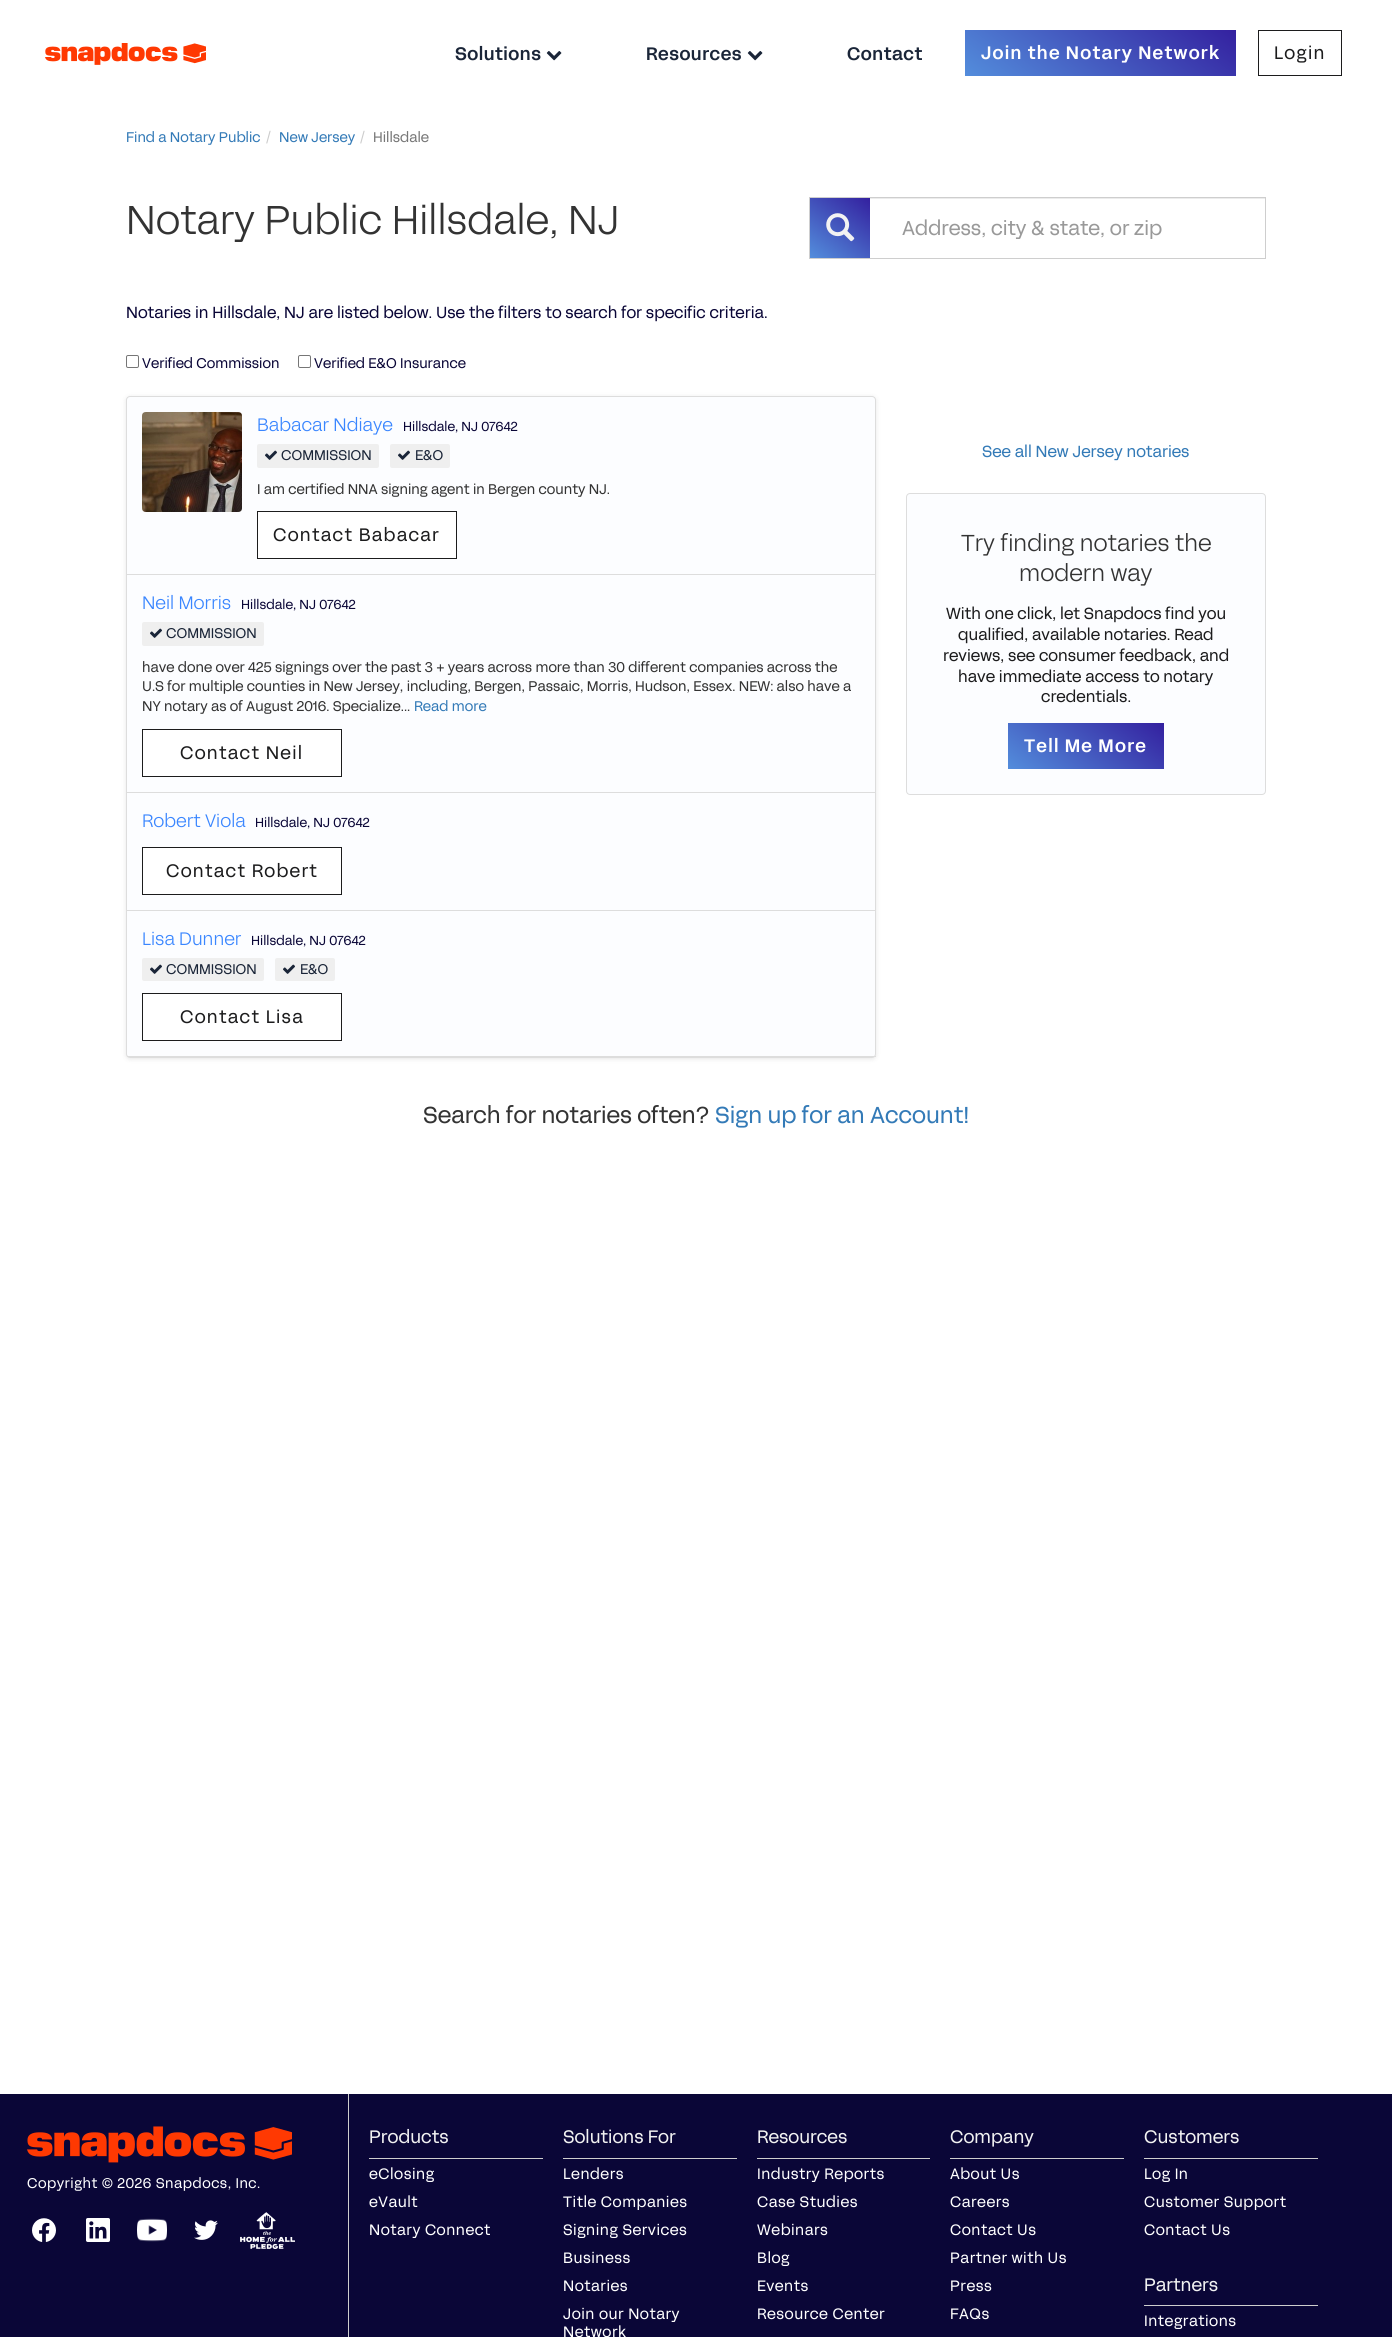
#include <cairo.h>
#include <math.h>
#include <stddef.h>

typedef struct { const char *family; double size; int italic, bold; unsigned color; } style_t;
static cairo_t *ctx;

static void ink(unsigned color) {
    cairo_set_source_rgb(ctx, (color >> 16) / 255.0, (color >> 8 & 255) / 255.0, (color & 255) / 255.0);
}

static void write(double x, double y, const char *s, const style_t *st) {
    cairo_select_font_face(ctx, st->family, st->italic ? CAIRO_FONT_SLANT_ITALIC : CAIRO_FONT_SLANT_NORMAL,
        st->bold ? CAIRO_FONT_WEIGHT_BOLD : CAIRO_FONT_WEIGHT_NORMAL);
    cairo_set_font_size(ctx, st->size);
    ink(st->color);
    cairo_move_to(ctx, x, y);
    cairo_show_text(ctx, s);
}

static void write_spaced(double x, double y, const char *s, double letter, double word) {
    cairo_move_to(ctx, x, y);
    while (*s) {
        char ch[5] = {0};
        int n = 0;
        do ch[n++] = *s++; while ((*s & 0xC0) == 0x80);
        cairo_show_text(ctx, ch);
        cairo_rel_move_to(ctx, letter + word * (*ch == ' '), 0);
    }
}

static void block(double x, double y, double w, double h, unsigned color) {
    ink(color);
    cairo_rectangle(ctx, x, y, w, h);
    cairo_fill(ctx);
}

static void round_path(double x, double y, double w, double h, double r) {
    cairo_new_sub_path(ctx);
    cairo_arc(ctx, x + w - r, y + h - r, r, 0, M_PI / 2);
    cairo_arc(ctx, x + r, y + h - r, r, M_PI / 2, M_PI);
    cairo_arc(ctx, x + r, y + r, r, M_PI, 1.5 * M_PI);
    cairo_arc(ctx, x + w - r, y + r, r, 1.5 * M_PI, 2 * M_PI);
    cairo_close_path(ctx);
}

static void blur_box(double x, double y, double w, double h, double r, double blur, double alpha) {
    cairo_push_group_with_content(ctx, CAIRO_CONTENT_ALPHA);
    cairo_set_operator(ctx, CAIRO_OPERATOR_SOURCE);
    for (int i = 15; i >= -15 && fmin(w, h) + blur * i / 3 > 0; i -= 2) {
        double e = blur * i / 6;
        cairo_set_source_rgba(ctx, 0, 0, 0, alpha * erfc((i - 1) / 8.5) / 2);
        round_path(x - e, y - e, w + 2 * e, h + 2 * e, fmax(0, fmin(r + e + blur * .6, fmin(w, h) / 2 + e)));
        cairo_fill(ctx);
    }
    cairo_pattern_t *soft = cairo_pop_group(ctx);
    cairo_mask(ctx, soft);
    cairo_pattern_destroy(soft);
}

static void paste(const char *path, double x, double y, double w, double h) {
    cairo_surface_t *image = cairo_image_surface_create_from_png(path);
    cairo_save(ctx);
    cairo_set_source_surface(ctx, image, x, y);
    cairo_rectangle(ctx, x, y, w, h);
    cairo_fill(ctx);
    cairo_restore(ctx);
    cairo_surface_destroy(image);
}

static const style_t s1 = {"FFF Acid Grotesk", 14, 0, 0, 0x337ab7};
static const style_t s2 = {"FFF Acid Grotesk", 14, 0, 0, 0xcccccc};
static const style_t s3 = {"FFF Acid Grotesk", 14, 0, 0, 0x777777};
static const style_t s4 = {"FFF Acid Grotesk Light", 40, 0, 0, 0x333333};
static const style_t s5 = {"FFF Acid Grotesk", 20, 0, 0, 0x999999};
static const style_t s6 = {"FFF Acid Grotesk", 16, 0, 0, 0x0a0637};
static const style_t s7 = {"FFF Acid Grotesk", 14, 0, 0, 0x0a0637};
static const style_t s8 = {"FFF Acid Grotesk Light", 18, 0, 0, 0x3a86ff};
static const style_t s9 = {"FFF Acid Grotesk", 13, 0, 0, 0x0a0637};
static const style_t s10 = {"FFF Acid Grotesk", 14, 0, 0, 0x1a2538};
static const style_t s11 = {"FFF Acid Grotesk", 14, 0, 0, 0x333333};
static const style_t s12 = {"FFF Acid Grotesk", 16, 0, 0, 0x337ab7};
static const style_t s13 = {"FFF Acid Grotesk Light", 23, 0, 0, 0x333333};
static const style_t s14 = {"FFF Acid Grotesk", 16, 0, 0, 0x1c1c1d};
static const style_t s15 = {"FFF Acid Grotesk", 23, 0, 0, 0x333333};
static const style_t s16 = {"FFF Acid Grotesk", 23, 0, 0, 0x337ab7};
static const style_t s17 = {"FFF Acid Grotesk", 18, 0, 0, 0xf2f2f2};

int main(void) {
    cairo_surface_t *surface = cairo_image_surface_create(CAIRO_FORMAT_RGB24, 1392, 2337);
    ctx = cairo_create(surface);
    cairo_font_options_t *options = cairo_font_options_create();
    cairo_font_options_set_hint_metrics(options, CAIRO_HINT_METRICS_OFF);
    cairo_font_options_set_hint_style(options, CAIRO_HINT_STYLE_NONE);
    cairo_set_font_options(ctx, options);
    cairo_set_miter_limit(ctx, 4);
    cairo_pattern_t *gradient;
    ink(0xffffff);
    cairo_paint(ctx);
    paste("pic1.png", 45, 43, 161, 22);
    cairo_select_font_face(ctx, "FFF Acid Grotesk Medium", CAIRO_FONT_SLANT_NORMAL, CAIRO_FONT_WEIGHT_NORMAL);
    cairo_set_font_size(ctx, 18);
    ink(0x1a2538);
    write_spaced(455, 60, "Solutions", 0.5, 0);
    paste("pic2.png", 546, 51, 16, 10);
    write_spaced(646, 60, "Resources", 0.5, 0);
    paste("pic2.png", 747, 51, 16, 10);
    write_spaced(847, 60, "Contact", 0.5, 0);
    gradient = cairo_pattern_create_linear(991, 199, 1171, -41);
    cairo_pattern_add_color_stop_rgba(gradient, 0, 0.376, 0.729, 0.961, 1);
    cairo_pattern_add_color_stop_rgba(gradient, 1, 0.192, 0.09, 0.604, 1);
    cairo_set_source(ctx, gradient);
    cairo_pattern_destroy(gradient);
    cairo_rectangle(ctx, 965, 30, 271, 46);
    cairo_fill(ctx);
    ink(0xffffff);
    write_spaced(981, 59, "Join the Notary Network", 1.25, 0);
    cairo_rectangle(ctx, 1258.5, 30.5, 83, 45);
    ink(0x1c1c1d);
    cairo_set_line_width(ctx, 1);
    cairo_stroke(ctx);
    cairo_select_font_face(ctx, "FFF Acid Grotesk", CAIRO_FONT_SLANT_NORMAL, CAIRO_FONT_WEIGHT_NORMAL);
    write_spaced(1274, 59, "Login", 1.25, 0);
    write(126, 142, "Find a Notary Public", &s1);
    write(266, 142, "/", &s2);
    write(279, 142, "New Jersey", &s1);
    write(360, 142, "/", &s2);
    write(373, 142, "Hillsdale", &s3);
    write(126, 234, "Notary Public Hillsdale, NJ", &s4);
    cairo_rectangle(ctx, 809.5, 197.5, 456, 61);
    ink(0xcecece);
    cairo_stroke(ctx);
    gradient = cairo_pattern_create_linear(794, 289, 870, 189);
    cairo_pattern_add_color_stop_rgba(gradient, 0, 0.376, 0.729, 0.961, 1);
    cairo_pattern_add_color_stop_rgba(gradient, 1, 0.192, 0.09, 0.604, 1);
    cairo_set_source(ctx, gradient);
    cairo_pattern_destroy(gradient);
    cairo_rectangle(ctx, 810, 198, 60, 60);
    cairo_fill(ctx);
    paste("pic3.png", 826, 213, 29, 29);
    block(870, 198, 395, 1, 0xececec);
    write(902, 235, "Address, city & state, or zip", &s5);
    write(126, 318, "Notaries in Hillsdale, NJ are listed below. Use the filters to search for specific criteria.", &s6);
    round_path(126.5, 355.5, 12, 12, 1.5);
    ink(0x767676);
    cairo_stroke(ctx);
    write(142, 368, "Verified Commission", &s7);
    round_path(298.5, 355.5, 12, 12, 1.5);
    ink(0x767676);
    cairo_stroke(ctx);
    write(314, 368, "Verified E&O Insurance", &s7);
    ink(0x000000);
    blur_box(126, 397, 750, 662, 4, 2.5, 0.1);
    ink(0xfcfdff);
    round_path(126.5, 396.5, 749, 661, 3.5);
    cairo_fill_preserve(ctx);
    ink(0xdddddd);
    cairo_stroke(ctx);
    block(127, 574, 749, 1, 0xdddddd);
    paste("pic4.png", 142, 412, 100, 100);
    write(257, 431, "Babacar Ndiaye", &s8);
    write(403, 431, "Hillsdale, NJ 07642", &s9);
    ink(0xefefef);
    round_path(257, 444, 122, 24, 2);
    cairo_fill(ctx);
    paste("pic5.png", 265, 450, 12, 10);
    write(281, 460, "COMMISSION", &s10);
    ink(0xefefef);
    round_path(390, 444, 60, 24, 2);
    cairo_fill(ctx);
    paste("pic5.png", 398, 450, 12, 10);
    write(415, 460, "E&O", &s10);
    write(257, 494, "I am certified NNA signing agent in Bergen county NJ.", &s11);
    ink(0xffffff);
    cairo_rectangle(ctx, 257.5, 511.5, 199, 47);
    cairo_fill_preserve(ctx);
    ink(0x1c1c1d);
    cairo_stroke(ctx);
    cairo_set_font_size(ctx, 18);
    write_spaced(273, 541, "Contact Babacar", 1.25, 0);
    block(127, 792, 749, 1, 0xdddddd);
    write(142, 609, "Neil Morris", &s8);
    write(241, 609, "Hillsdale, NJ 07642", &s9);
    ink(0xefefef);
    round_path(142, 622, 122, 24, 2);
    cairo_fill(ctx);
    paste("pic5.png", 150, 628, 12, 10);
    write(166, 638, "COMMISSION", &s10);
    write(142, 672, "have done over 425 signings over the past 3 + years across more than 30 different companies across the", &s11);
    write(142, 691, "U.S for multiple counties in New Jersey, including, Bergen, Passaic, Morris, Hudson, Essex. NEW: also have a", &s11);
    write(142, 711, "NY notary as of August 2016. Specialize...", &s11);
    write(414, 711, "Read more", &s1);
    ink(0xffffff);
    cairo_rectangle(ctx, 142.5, 729.5, 199, 47);
    cairo_fill_preserve(ctx);
    ink(0x1c1c1d);
    cairo_stroke(ctx);
    cairo_set_font_size(ctx, 18);
    write_spaced(180, 759, "Contact Neil", 1.25, 0);
    block(127, 910, 749, 1, 0xdddddd);
    write(142, 827, "Robert Viola", &s8);
    write(255, 827, "Hillsdale, NJ 07642", &s9);
    ink(0xffffff);
    cairo_rectangle(ctx, 142.5, 847.5, 199, 47);
    cairo_fill_preserve(ctx);
    ink(0x1c1c1d);
    cairo_stroke(ctx);
    cairo_set_font_size(ctx, 18);
    write_spaced(166, 877, "Contact Robert", 1.25, 0);
    block(127, 1056, 749, 1, 0xdddddd);
    write(142, 945, "Lisa Dunner", &s8);
    write(251, 945, "Hillsdale, NJ 07642", &s9);
    ink(0xefefef);
    round_path(142, 958, 122, 23, 2);
    cairo_fill(ctx);
    paste("pic5.png", 150, 964, 12, 10);
    write(166, 974, "COMMISSION", &s10);
    ink(0xefefef);
    round_path(275, 958, 60, 23, 2);
    cairo_fill(ctx);
    paste("pic5.png", 283, 964, 12, 10);
    write(300, 974, "E&O", &s10);
    ink(0xffffff);
    cairo_rectangle(ctx, 142.5, 993.5, 199, 47);
    cairo_fill_preserve(ctx);
    ink(0x1c1c1d);
    cairo_stroke(ctx);
    cairo_set_font_size(ctx, 18);
    write_spaced(180, 1023, "Contact Lisa", 1.25, 0);
    write(982, 457, "See all New Jersey notaries", &s12);
    ink(0xfcfdff);
    round_path(906.5, 493.5, 359, 301, 3.5);
    cairo_fill_preserve(ctx);
    ink(0xdddddd);
    cairo_stroke(ctx);
    write(961, 551, "Try finding notaries the", &s13);
    write(1019, 581, "modern way", &s13);
    write(946, 619, "With one click, let Snapdocs find you", &s14);
    write(958, 640, "qualified, available notaries. Read", &s14);
    write(943, 661, "reviews, see consumer feedback, and", &s14);
    write(958, 682, "have immediate access to notary", &s14);
    write(1041, 702, "credentials.", &s14);
    gradient = cairo_pattern_create_linear(1014, 841, 1132, 685);
    cairo_pattern_add_color_stop_rgba(gradient, 0, 0.376, 0.729, 0.961, 1);
    cairo_pattern_add_color_stop_rgba(gradient, 1, 0.192, 0.09, 0.604, 1);
    cairo_set_source(ctx, gradient);
    cairo_pattern_destroy(gradient);
    cairo_rectangle(ctx, 1008, 723, 156, 46);
    cairo_fill(ctx);
    cairo_select_font_face(ctx, "FFF Acid Grotesk Medium", CAIRO_FONT_SLANT_NORMAL, CAIRO_FONT_WEIGHT_NORMAL);
    cairo_set_font_size(ctx, 18);
    ink(0xffffff);
    write_spaced(1024, 752, "Tell Me More", 1.25, 0);
    write(423, 1123, "Search for notaries often?", &s15);
    write(715, 1123, "Sign up for an Account!", &s16);
    block(0, 2094, 1392, 243, 0x0a0637);
    paste("pic6.png", 27, 2126, 265, 37);
    cairo_set_font_size(ctx, 14);
    ink(0xffffff);
    write_spaced(27, 2188, "Copyright © 2026 Snapdocs, Inc.", 0.5, 0);
    paste("pic7.png", 32, 2218, 24, 24);
    paste("pic8.png", 86, 2218, 24, 24);
    paste("pic9.png", 137, 2218, 30, 24);
    paste("pic10.png", 194, 2220, 24, 20);
    paste("pic11.png", 240, 2212, 55, 37);
    block(348, 2094, 1, 243, 0xcecece);
    block(369, 2158, 174, 1, 0xcecece);
    write(369, 2143, "Products", &s17);
    cairo_set_font_size(ctx, 15);
    ink(0xffffff);
    write_spaced(369, 2179, "eClosing", 0.5, 0);
    write_spaced(369, 2207, "eVault", 0.5, 0);
    write_spaced(369, 2235, "Notary Connect", 0.5, 0);
    block(563, 2158, 174, 1, 0xcecece);
    write(563, 2143, "Solutions For", &s17);
    cairo_set_font_size(ctx, 15);
    ink(0xffffff);
    write_spaced(563, 2179, "Lenders", 0.5, 0);
    write_spaced(563, 2207, "Title Companies", 0.5, 0);
    write_spaced(563, 2235, "Signing Services", 0.5, 0);
    write_spaced(563, 2263, "Business", 0.5, 0);
    write_spaced(563, 2291, "Notaries", 0.5, 0);
    write_spaced(563, 2319, "Join our Notary", 0.5, 0);
    write_spaced(563, 2337, "Network", 0.5, 0);
    block(757, 2158, 173, 1, 0xcecece);
    write(757, 2143, "Resources", &s17);
    cairo_set_font_size(ctx, 15);
    ink(0xffffff);
    write_spaced(757, 2179, "Industry Reports", 0.5, 0);
    write_spaced(757, 2207, "Case Studies", 0.5, 0);
    write_spaced(757, 2235, "Webinars", 0.5, 0);
    write_spaced(757, 2263, "Blog", 0.5, 0);
    write_spaced(757, 2291, "Events", 0.5, 0);
    write_spaced(757, 2319, "Resource Center", 0.5, 0);
    block(950, 2158, 174, 1, 0xcecece);
    write(950, 2143, "Company", &s17);
    cairo_set_font_size(ctx, 15);
    ink(0xffffff);
    write_spaced(950, 2179, "About Us", 0.5, 0);
    write_spaced(950, 2207, "Careers", 0.5, 0);
    write_spaced(950, 2235, "Contact Us", 0.5, 0);
    write_spaced(950, 2263, "Partner with Us", 0.5, 0);
    write_spaced(950, 2291, "Press", 0.5, 0);
    write_spaced(950, 2319, "FAQs", 0.5, 0);
    block(1144, 2158, 174, 1, 0xcecece);
    write(1144, 2143, "Customers", &s17);
    cairo_set_font_size(ctx, 15);
    ink(0xffffff);
    write_spaced(1144, 2179, "Log In", 0.5, 0);
    write_spaced(1144, 2207, "Customer Support", 0.5, 0);
    write_spaced(1144, 2235, "Contact Us", 0.5, 0);
    block(1144, 2305, 174, 1, 0xcecece);
    write(1144, 2291, "Partners", &s17);
    cairo_set_font_size(ctx, 15);
    ink(0xffffff);
    write_spaced(1144, 2326, "Integrations", 0.5, 0);
    cairo_surface_write_to_png(surface, "screenshot.png");
    cairo_font_options_destroy(options);
    cairo_destroy(ctx);
    cairo_surface_destroy(surface);
    return 0;
}
